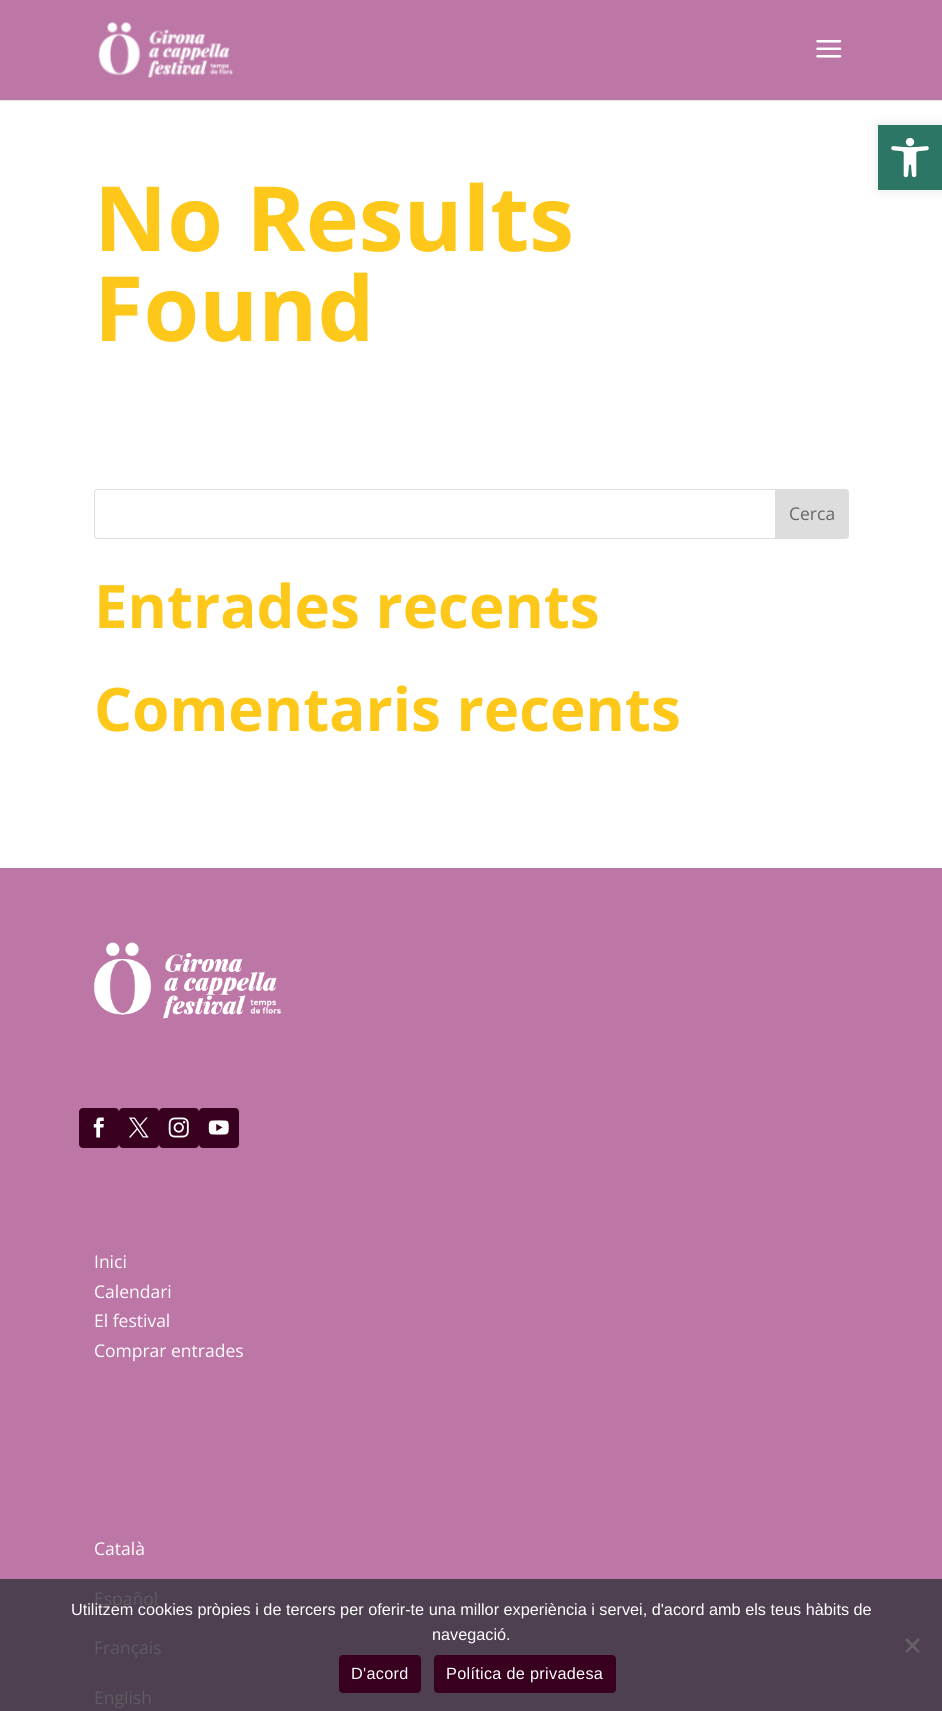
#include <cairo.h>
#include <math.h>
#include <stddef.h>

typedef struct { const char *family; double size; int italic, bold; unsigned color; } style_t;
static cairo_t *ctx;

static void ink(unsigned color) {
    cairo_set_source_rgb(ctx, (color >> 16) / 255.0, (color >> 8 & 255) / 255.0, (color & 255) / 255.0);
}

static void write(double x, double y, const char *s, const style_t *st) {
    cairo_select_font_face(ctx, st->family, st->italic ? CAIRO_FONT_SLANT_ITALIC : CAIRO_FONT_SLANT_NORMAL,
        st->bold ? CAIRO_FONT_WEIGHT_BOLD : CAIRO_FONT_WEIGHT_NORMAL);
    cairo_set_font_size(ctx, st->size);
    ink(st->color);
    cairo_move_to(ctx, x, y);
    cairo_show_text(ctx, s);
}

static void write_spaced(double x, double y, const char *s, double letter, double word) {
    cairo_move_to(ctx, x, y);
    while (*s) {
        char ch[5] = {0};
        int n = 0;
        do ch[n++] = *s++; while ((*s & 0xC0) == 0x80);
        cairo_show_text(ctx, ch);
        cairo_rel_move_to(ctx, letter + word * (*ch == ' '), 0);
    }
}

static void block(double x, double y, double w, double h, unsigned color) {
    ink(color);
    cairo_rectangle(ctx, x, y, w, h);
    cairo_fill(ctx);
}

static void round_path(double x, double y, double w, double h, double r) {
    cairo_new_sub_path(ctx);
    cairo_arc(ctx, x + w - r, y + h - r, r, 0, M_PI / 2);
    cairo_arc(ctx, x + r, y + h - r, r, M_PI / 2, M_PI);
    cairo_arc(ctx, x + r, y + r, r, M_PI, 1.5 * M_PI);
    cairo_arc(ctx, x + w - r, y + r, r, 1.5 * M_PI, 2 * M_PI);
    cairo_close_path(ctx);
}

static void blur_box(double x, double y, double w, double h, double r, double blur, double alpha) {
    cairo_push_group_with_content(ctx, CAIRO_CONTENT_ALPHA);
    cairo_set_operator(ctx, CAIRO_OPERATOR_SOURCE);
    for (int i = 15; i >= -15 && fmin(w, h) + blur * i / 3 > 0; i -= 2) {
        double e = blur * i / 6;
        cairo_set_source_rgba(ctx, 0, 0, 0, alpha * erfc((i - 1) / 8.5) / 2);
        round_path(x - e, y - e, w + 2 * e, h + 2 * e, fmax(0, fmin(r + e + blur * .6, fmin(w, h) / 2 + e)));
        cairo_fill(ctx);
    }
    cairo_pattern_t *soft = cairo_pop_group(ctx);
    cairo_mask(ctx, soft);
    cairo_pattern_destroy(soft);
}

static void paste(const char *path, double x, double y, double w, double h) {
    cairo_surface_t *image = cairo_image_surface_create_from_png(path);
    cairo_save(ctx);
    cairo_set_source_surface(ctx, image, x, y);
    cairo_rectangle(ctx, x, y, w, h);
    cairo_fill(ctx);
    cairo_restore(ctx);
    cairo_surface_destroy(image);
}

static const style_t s1 = {"Open Sans", 90, 0, 1, 0xfec81a};
static const style_t s2 = {"Open Sans", 17.5, 0, 0, 0x666666};
static const style_t s3 = {"Open Sans", 60, 0, 1, 0xfec81a};
static const style_t s4 = {"Open Sans", 17.5, 0, 0, 0xffffff};
static const style_t s5 = {"Open Sans", 17.5, 0, 0, 0x5b5b61};
static const style_t s6 = {"Liberation Sans", 16.25, 0, 0, 0xffffff};

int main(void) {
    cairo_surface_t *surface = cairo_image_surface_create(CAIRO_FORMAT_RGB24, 942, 1711);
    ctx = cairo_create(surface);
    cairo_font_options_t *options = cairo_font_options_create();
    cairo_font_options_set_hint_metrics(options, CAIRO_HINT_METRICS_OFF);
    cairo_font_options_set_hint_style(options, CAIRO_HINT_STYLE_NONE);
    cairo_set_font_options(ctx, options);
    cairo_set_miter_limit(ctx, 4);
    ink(0xffffff);
    cairo_paint(ctx);
    ink(0x000000);
    blur_box(878, 125, 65, 65, 0, 6, 0.1);
    block(878, 125, 64, 65, 0x2c7665);
    paste("pic1.png", 891, 138, 38, 40);
    ink(0xe6e6e6);
    cairo_new_path(ctx);
    cairo_move_to(ctx, 0, 100);
    cairo_line_to(ctx, 0, 101);
    cairo_line_to(ctx, 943, 101);
    cairo_line_to(ctx, 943, 1);
    cairo_line_to(ctx, 942, 1);
    cairo_line_to(ctx, 942, 100);
    cairo_close_path(ctx);
    cairo_fill(ctx);
    block(0, 0, 942, 100, 0xbd77a7);
    paste("pic2.png", 98, 22, 135, 56);
    paste("pic3.png", 816, 40, 26, 18);
    write(94, 251, "No Results", &s1);
    write(94, 341, "Found", &s1);
    round_path(94.5, 489.5, 754, 49, 3.5);
    ink(0xdddddd);
    cairo_set_line_width(ctx, 1);
    cairo_stroke(ctx);
    cairo_new_path(ctx);
    cairo_move_to(ctx, 775.5, 489.5);
    cairo_line_to(ctx, 845, 489.5);
    cairo_curve_to(ctx, 847, 489.5, 848.5, 491, 848.5, 493);
    cairo_line_to(ctx, 848.5, 535);
    cairo_curve_to(ctx, 848.5, 537, 847, 538.5, 845, 538.5);
    cairo_line_to(ctx, 775.5, 538.5);
    cairo_close_path(ctx);
    cairo_fill_preserve(ctx);
    cairo_stroke(ctx);
    write(789, 520, "Cerca", &s2);
    write(94, 628, "Entrades recents", &s3);
    write(94, 731, "Comentaris recents", &s3);
    block(0, 868, 942, 711, 0xbd77a7);
    block(0, 1579, 942, 132, 0x4e4050);
    paste("pic4.png", 93, 942, 189, 77);
    ink(0x38001e);
    round_path(79, 1108, 40, 40, 4);
    cairo_fill(ctx);
    paste("pic5.png", 93, 1117, 11, 21);
    round_path(119, 1108, 40, 40, 4);
    cairo_fill(ctx);
    paste("pic6.png", 128, 1117, 21, 21);
    round_path(159, 1108, 40, 40, 4);
    cairo_fill(ctx);
    paste("pic7.png", 168, 1117, 21, 21);
    round_path(199, 1108, 40, 40, 4);
    cairo_fill(ctx);
    paste("pic8.png", 208, 1120, 21, 15);
    write(94, 1268, "Inici", &s4);
    write(94, 1298, "Calendari", &s4);
    write(94, 1327, "El festival", &s4);
    write(94, 1357, "Comprar entrades", &s4);
    write(94, 1555, "Català", &s4);
    write(94, 1605, "Español", &s5);
    write(94, 1654, "Français", &s5);
    write(94, 1704, "English", &s5);
    write(71, 1615, "Utilitzem cookies pròpies i de tercers per oferir-te una millor experiència i servei, d'acord amb els teus hàbits de", &s6);
    write(432, 1640, "navegació.", &s6);
    ink(0x676068);
    cairo_new_path(ctx);
    cairo_move_to(ctx, 918, 1638);
    cairo_line_to(ctx, 920, 1640);
    cairo_line_to(ctx, 907, 1653);
    cairo_line_to(ctx, 905, 1651.5);
    cairo_close_path(ctx);
    cairo_fill(ctx);
    cairo_new_path(ctx);
    cairo_move_to(ctx, 905, 1640);
    cairo_line_to(ctx, 907, 1638);
    cairo_line_to(ctx, 920, 1651.5);
    cairo_line_to(ctx, 918, 1653);
    cairo_close_path(ctx);
    cairo_fill(ctx);
    ink(0x38001e);
    round_path(339, 1655, 82, 38, 4);
    cairo_fill(ctx);
    ink(0xffffff);
    write_spaced(351, 1679, "D'acord", 0.3, 0);
    ink(0x38001e);
    round_path(434, 1655, 182, 38, 4);
    cairo_fill(ctx);
    ink(0xffffff);
    write_spaced(446, 1679, "Política de privadesa", 0.3, 0);
    cairo_surface_write_to_png(surface, "screenshot.png");
    cairo_font_options_destroy(options);
    cairo_destroy(ctx);
    cairo_surface_destroy(surface);
    return 0;
}
